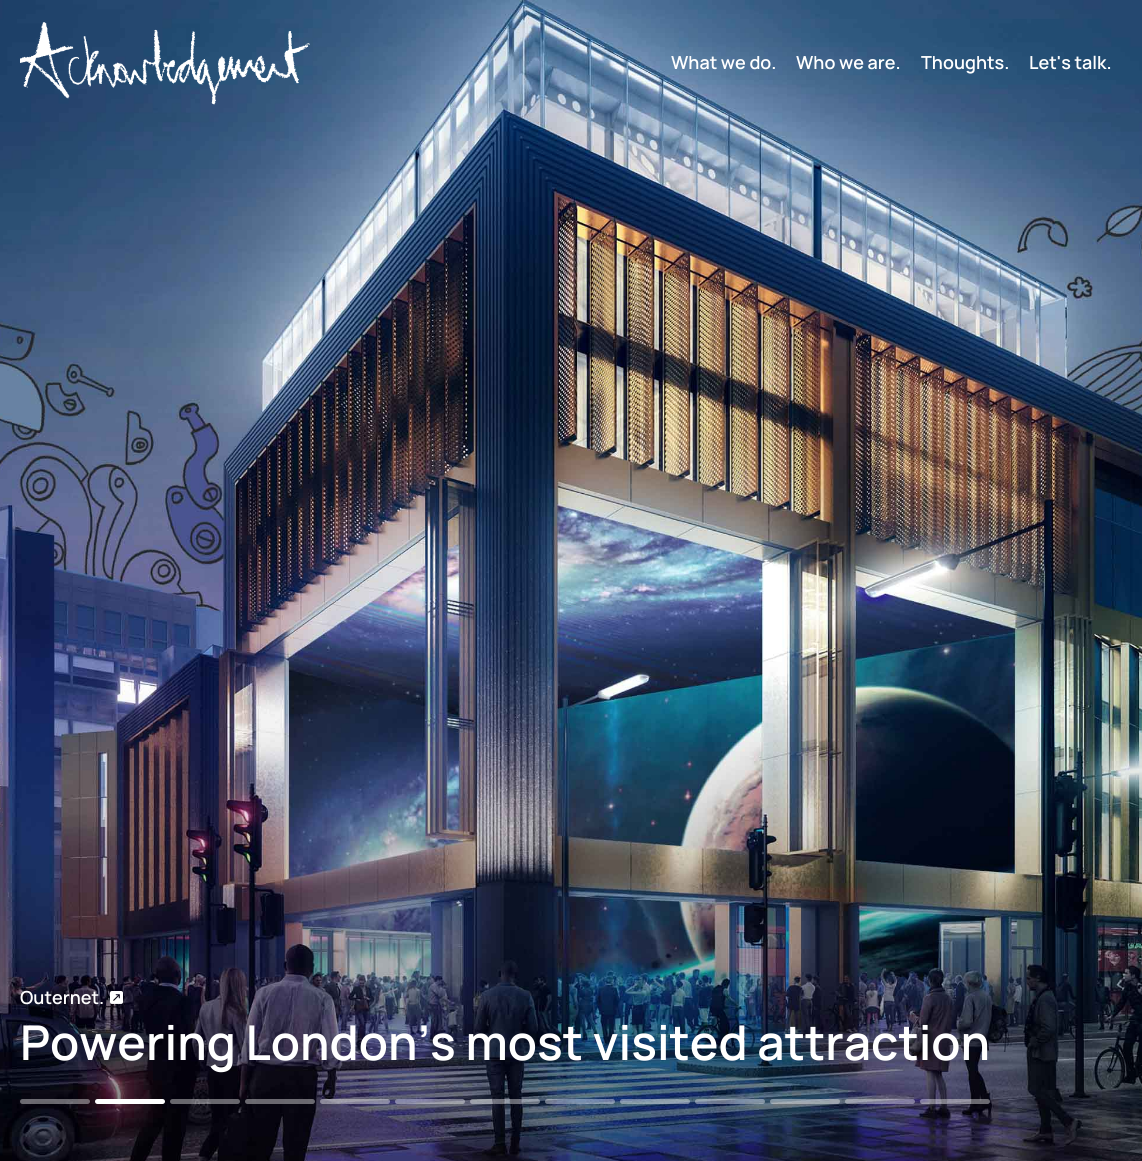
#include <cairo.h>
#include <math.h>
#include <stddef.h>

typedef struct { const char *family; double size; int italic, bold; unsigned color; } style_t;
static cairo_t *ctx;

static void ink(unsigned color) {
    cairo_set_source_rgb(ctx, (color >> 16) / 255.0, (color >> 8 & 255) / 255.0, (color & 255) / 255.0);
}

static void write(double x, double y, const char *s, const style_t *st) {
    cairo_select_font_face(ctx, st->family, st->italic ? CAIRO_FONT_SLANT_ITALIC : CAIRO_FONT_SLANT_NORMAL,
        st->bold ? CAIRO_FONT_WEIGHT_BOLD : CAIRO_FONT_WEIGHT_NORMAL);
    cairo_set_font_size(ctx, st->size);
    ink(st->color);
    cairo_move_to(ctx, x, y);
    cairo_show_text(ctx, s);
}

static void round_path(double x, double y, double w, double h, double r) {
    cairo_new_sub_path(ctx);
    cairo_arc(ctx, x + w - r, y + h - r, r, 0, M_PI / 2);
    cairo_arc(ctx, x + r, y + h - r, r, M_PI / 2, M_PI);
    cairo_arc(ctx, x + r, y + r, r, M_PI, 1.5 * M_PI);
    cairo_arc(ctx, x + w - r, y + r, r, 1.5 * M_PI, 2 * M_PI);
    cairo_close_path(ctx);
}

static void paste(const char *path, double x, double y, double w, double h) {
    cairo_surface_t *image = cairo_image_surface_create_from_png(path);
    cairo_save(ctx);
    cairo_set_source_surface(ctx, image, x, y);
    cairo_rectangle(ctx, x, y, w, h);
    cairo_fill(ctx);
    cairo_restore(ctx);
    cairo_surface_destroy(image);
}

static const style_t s1 = {"Manrope SemiBold", 18, 0, 0, 0xffffff};
static const style_t s2 = {"Manrope SemiBold", 48, 0, 0, 0xffffff};

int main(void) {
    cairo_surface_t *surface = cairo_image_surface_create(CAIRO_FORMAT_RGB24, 1142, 1161);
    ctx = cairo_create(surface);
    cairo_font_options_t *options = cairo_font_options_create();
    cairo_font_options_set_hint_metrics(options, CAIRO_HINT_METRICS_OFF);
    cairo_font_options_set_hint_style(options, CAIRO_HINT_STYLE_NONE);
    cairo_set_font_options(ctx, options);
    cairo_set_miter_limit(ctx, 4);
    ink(0xffffff);
    cairo_paint(ctx);
    paste("pic2.png", 0, 0, 1142, 1161);
    paste("pic1.png", 20, 22, 290, 83);
    write(671, 69, "What we do.", &s1);
    write(796, 69, "Who we are.", &s1);
    write(921, 69, "Thoughts.", &s1);
    write(1029, 69, "Let's talk.", &s1);
    write(20, 1004, "Outernet.", &s1);
    paste("pic3.png", 110, 991, 13, 13);
    write(20, 1060, "Powering London’s most visited attraction", &s2);
    cairo_set_source_rgba(ctx, 1, 1, 1, 0.4);
    round_path(20, 1099, 70, 5, 2.5);
    cairo_fill(ctx);
    ink(0xffffff);
    round_path(95, 1099, 70, 5, 2.5);
    cairo_fill(ctx);
    cairo_set_source_rgba(ctx, 1, 1, 1, 0.4);
    round_path(170, 1099, 70, 5, 2.5);
    cairo_fill(ctx);
    round_path(245, 1099, 70, 5, 2.5);
    cairo_fill(ctx);
    round_path(320, 1099, 70, 5, 2.5);
    cairo_fill(ctx);
    round_path(395, 1099, 70, 5, 2.5);
    cairo_fill(ctx);
    round_path(470, 1099, 70, 5, 2.5);
    cairo_fill(ctx);
    round_path(545, 1099, 70, 5, 2.5);
    cairo_fill(ctx);
    round_path(620, 1099, 70, 5, 2.5);
    cairo_fill(ctx);
    round_path(695, 1099, 70, 5, 2.5);
    cairo_fill(ctx);
    round_path(770, 1099, 70, 5, 2.5);
    cairo_fill(ctx);
    round_path(845, 1099, 70, 5, 2.5);
    cairo_fill(ctx);
    round_path(920, 1099, 70, 5, 2.5);
    cairo_fill(ctx);
    cairo_surface_write_to_png(surface, "screenshot.png");
    cairo_font_options_destroy(options);
    cairo_destroy(ctx);
    cairo_surface_destroy(surface);
    return 0;
}
